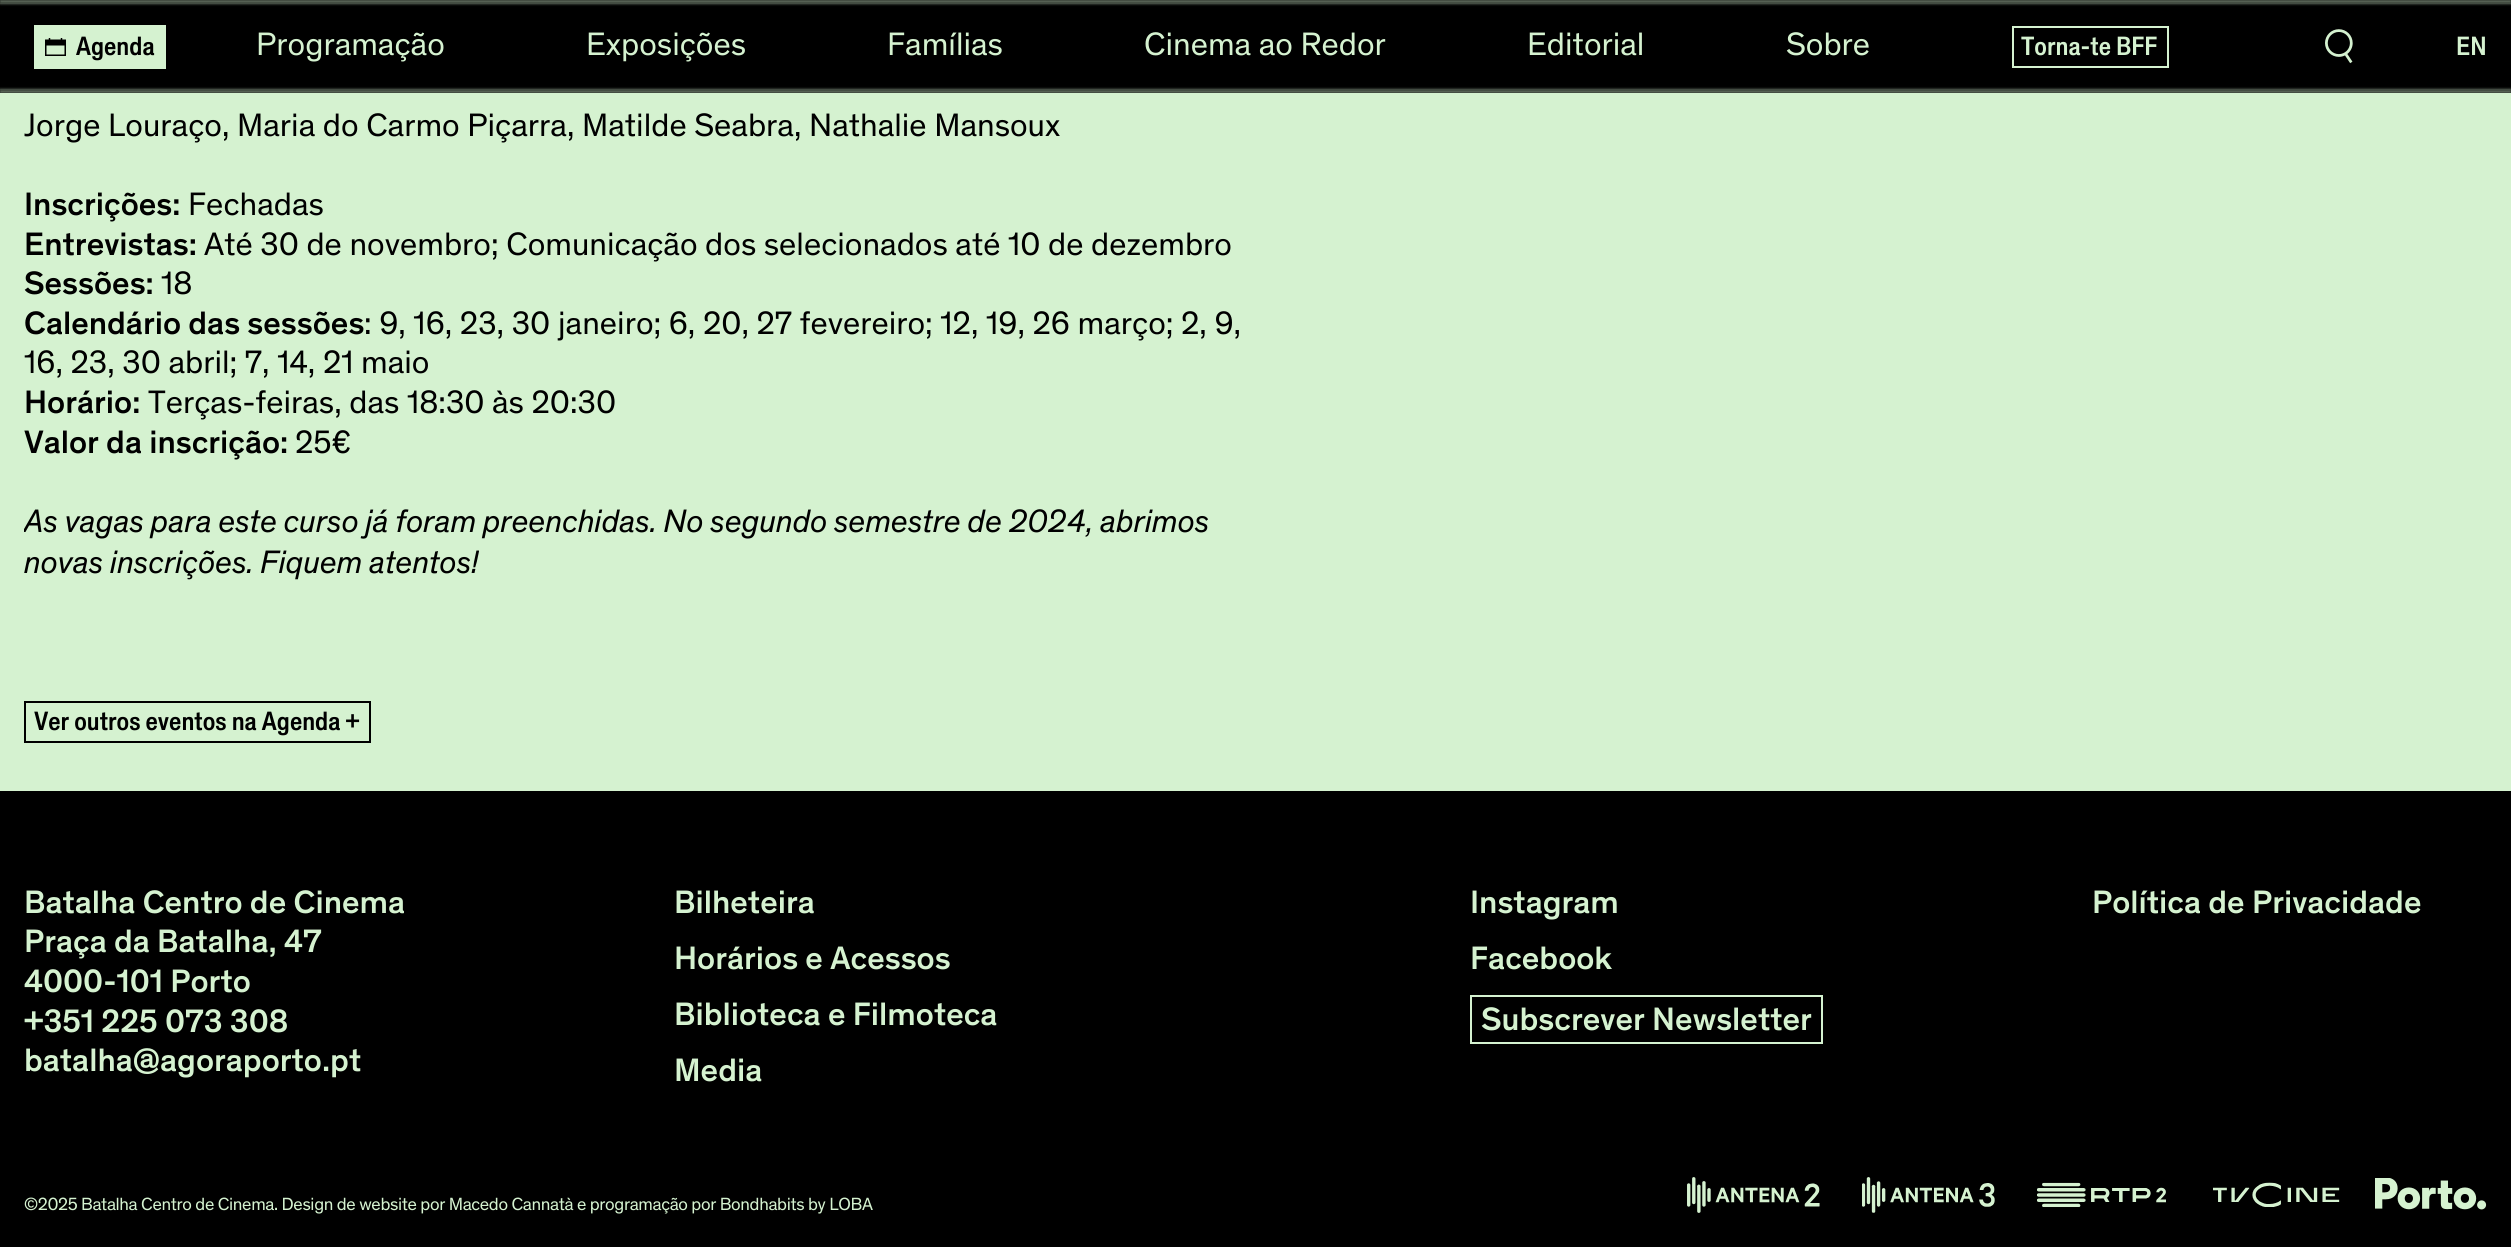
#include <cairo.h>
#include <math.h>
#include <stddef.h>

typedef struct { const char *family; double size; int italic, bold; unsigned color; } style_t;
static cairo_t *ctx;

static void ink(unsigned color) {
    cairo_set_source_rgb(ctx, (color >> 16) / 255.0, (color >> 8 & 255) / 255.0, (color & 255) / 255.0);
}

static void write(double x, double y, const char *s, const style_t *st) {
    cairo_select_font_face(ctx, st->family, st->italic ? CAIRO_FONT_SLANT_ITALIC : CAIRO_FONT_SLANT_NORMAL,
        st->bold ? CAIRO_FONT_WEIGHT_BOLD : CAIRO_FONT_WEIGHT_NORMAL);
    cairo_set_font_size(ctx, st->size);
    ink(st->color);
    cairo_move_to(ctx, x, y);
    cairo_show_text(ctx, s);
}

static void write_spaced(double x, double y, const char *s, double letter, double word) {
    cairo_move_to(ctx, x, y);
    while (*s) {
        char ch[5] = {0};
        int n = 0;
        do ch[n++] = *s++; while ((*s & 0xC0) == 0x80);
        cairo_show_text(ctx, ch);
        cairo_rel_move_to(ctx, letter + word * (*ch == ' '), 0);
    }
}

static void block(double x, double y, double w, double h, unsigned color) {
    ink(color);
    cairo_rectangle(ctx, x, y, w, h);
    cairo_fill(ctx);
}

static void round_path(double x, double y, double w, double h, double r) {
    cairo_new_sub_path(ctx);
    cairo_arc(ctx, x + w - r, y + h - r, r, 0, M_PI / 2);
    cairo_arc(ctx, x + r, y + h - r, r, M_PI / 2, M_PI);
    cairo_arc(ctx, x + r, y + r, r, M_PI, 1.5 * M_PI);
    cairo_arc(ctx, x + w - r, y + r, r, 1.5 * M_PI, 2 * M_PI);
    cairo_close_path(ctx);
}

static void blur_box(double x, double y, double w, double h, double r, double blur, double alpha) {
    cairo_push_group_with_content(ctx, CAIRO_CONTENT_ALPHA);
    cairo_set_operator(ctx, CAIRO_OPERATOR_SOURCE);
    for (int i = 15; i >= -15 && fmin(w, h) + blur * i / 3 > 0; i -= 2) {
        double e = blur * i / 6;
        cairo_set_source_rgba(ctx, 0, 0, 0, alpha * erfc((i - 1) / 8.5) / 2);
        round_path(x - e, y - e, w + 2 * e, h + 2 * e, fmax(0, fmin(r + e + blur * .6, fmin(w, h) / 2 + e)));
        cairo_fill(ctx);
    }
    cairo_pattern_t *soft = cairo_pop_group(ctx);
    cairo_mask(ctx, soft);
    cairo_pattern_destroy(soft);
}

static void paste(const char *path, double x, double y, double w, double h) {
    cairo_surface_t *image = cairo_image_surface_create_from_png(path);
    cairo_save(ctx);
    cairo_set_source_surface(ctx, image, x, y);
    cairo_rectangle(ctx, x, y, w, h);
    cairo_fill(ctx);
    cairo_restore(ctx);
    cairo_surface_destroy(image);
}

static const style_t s1 = {"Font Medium", 27, 0, 0, 0x000000};
static const style_t s2 = {"Font", 33, 0, 0, 0xd5f2d0};
static const style_t s3 = {"Font Medium", 27, 0, 0, 0xd5f2d0};
static const style_t s4 = {"Font", 33, 0, 0, 0x000000};
static const style_t s5 = {"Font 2 Medium", 33, 0, 0, 0x000000};
static const style_t s6 = {"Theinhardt", 33, 1, 0, 0x000000};
static const style_t s7 = {"Font 2 Medium", 33, 0, 0, 0xd5f2d0};

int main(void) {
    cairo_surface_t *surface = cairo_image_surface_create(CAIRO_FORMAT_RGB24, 2511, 1247);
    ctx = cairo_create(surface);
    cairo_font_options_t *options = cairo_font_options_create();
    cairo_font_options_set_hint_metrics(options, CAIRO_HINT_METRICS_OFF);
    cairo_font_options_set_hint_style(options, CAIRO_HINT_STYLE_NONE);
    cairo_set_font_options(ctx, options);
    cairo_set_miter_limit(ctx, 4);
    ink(0xd5f2d0);
    cairo_paint(ctx);
    block(0, 0, 2511, 93, 0x000000);
    cairo_save(ctx);
    cairo_rectangle(ctx, 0, 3, 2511, 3);
    cairo_clip(ctx);
    ink(0x6b7968);
    blur_box(0, 0, 2511, 3, 0, 1.5, 1);
    cairo_restore(ctx);
    ink(0x6b7968);
    blur_box(0, 0, 2511, 3, 0, 1.5, 1);
    block(34, 25, 132, 44, 0xd5f2d0);
    paste("pic1.png", 45, 38, 21, 18);
    write(76, 55, "Agenda", &s1);
    write(256, 55, "Programação", &s2);
    write(586, 55, "Exposições", &s2);
    write(887, 55, "Famílias", &s2);
    write(1144, 55, "Cinema ao Redor", &s2);
    write(1527, 55, "Editorial", &s2);
    write(1786, 55, "Sobre", &s2);
    cairo_rectangle(ctx, 2013, 27, 155, 40);
    cairo_stroke(ctx);
    write(2021, 55, "Torna-te BFF", &s3);
    paste("pic2.png", 2325, 29, 28, 35);
    write(2456, 55, "EN", &s3);
    cairo_save(ctx);
    cairo_rectangle(ctx, 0, 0, 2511, 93);
    cairo_clip(ctx);
    cairo_rectangle(ctx, 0, 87, 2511, 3);
    cairo_clip(ctx);
    ink(0x6b7968);
    blur_box(0, 90, 2511, 3, 0, 1.5, 1);
    cairo_restore(ctx);
    cairo_save(ctx);
    cairo_rectangle(ctx, 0, 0, 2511, 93);
    cairo_clip(ctx);
    ink(0x6b7968);
    blur_box(0, 90, 2511, 3, 0, 1.5, 1);
    cairo_restore(ctx);
    write(24, 136, "Jorge Louraço, Maria do Carmo Piçarra, Matilde Seabra, Nathalie Mansoux", &s4);
    write(24, 215, "Inscrições:", &s5);
    write(188, 215, "Fechadas", &s4);
    write(24, 255, "Entrevistas:", &s5);
    write(204, 255, "Até 30 de novembro; Comunicação dos selecionados até 10 de dezembro", &s4);
    write(24, 294, "Sessões:", &s5);
    write(161, 294, "18", &s4);
    write(24, 334, "Calendário das sessões", &s5);
    write(364, 334, ": 9, 16, 23, 30 janeiro; 6, 20, 27 fevereiro; 12, 19, 26 março; 2, 9,", &s4);
    write(24, 373, "16, 23, 30 abril; 7, 14, 21 maio", &s4);
    write(24, 413, "Horário:", &s5);
    write(148, 413, "Terças-feiras, das 18:30 às 20:30", &s4);
    write(24, 453, "Valor da inscrição:", &s5);
    write(295, 453, "25€", &s4);
    cairo_save(ctx);
    cairo_rectangle(ctx, 24, 0, 2463, 617);
    cairo_clip(ctx);
    write(24, 532, "As vagas para este curso já foram preenchidas. No segundo semestre de 2024, abrimos", &s6);
    cairo_restore(ctx);
    write(24, 573, "novas inscrições. Fiquem atentos!", &s6);
    cairo_rectangle(ctx, 25, 702, 345, 40);
    cairo_stroke(ctx);
    write(34, 730, "Ver outros eventos na Agenda +", &s1);
    block(0, 791, 2511, 456, 0x000000);
    write(24, 913, "Batalha Centro de Cinema", &s7);
    write(24, 952, "Praça da Batalha, 47", &s7);
    write(24, 992, "4000-101 Porto", &s7);
    write(24, 1032, "+351 225 073 308", &s7);
    write(24, 1071, "batalha@agoraporto.pt", &s7);
    write(674, 913, "Bilheteira", &s7);
    write(674, 969, "Horários e Acessos", &s7);
    write(674, 1025, "Biblioteca e Filmoteca", &s7);
    write(674, 1081, "Media", &s7);
    write(1470, 913, "Instagram", &s7);
    write(1470, 969, "Facebook", &s7);
    cairo_rectangle(ctx, 1471, 996, 351, 47);
    cairo_stroke(ctx);
    write(1481, 1030, "Subscrever Newsletter", &s7);
    write(2092, 913, "Política de Privacidade", &s7);
    cairo_select_font_face(ctx, "Font", CAIRO_FONT_SLANT_NORMAL, CAIRO_FONT_WEIGHT_NORMAL);
    cairo_set_font_size(ctx, 18);
    write_spaced(24, 1210, "©2025 Batalha Centro de Cinema. Design de website por Macedo Cannatà e programação por Bondhabits by LOBA", -0.36, 0);
    paste("pic3.png", 1687, 1177, 133, 36);
    paste("pic4.png", 1862, 1177, 133, 36);
    paste("pic5.png", 2037, 1182, 129, 25);
    paste("pic6.png", 2213, 1182, 127, 25);
    paste("pic7.png", 2375, 1178, 112, 32);
    cairo_surface_write_to_png(surface, "screenshot.png");
    cairo_font_options_destroy(options);
    cairo_destroy(ctx);
    cairo_surface_destroy(surface);
    return 0;
}
